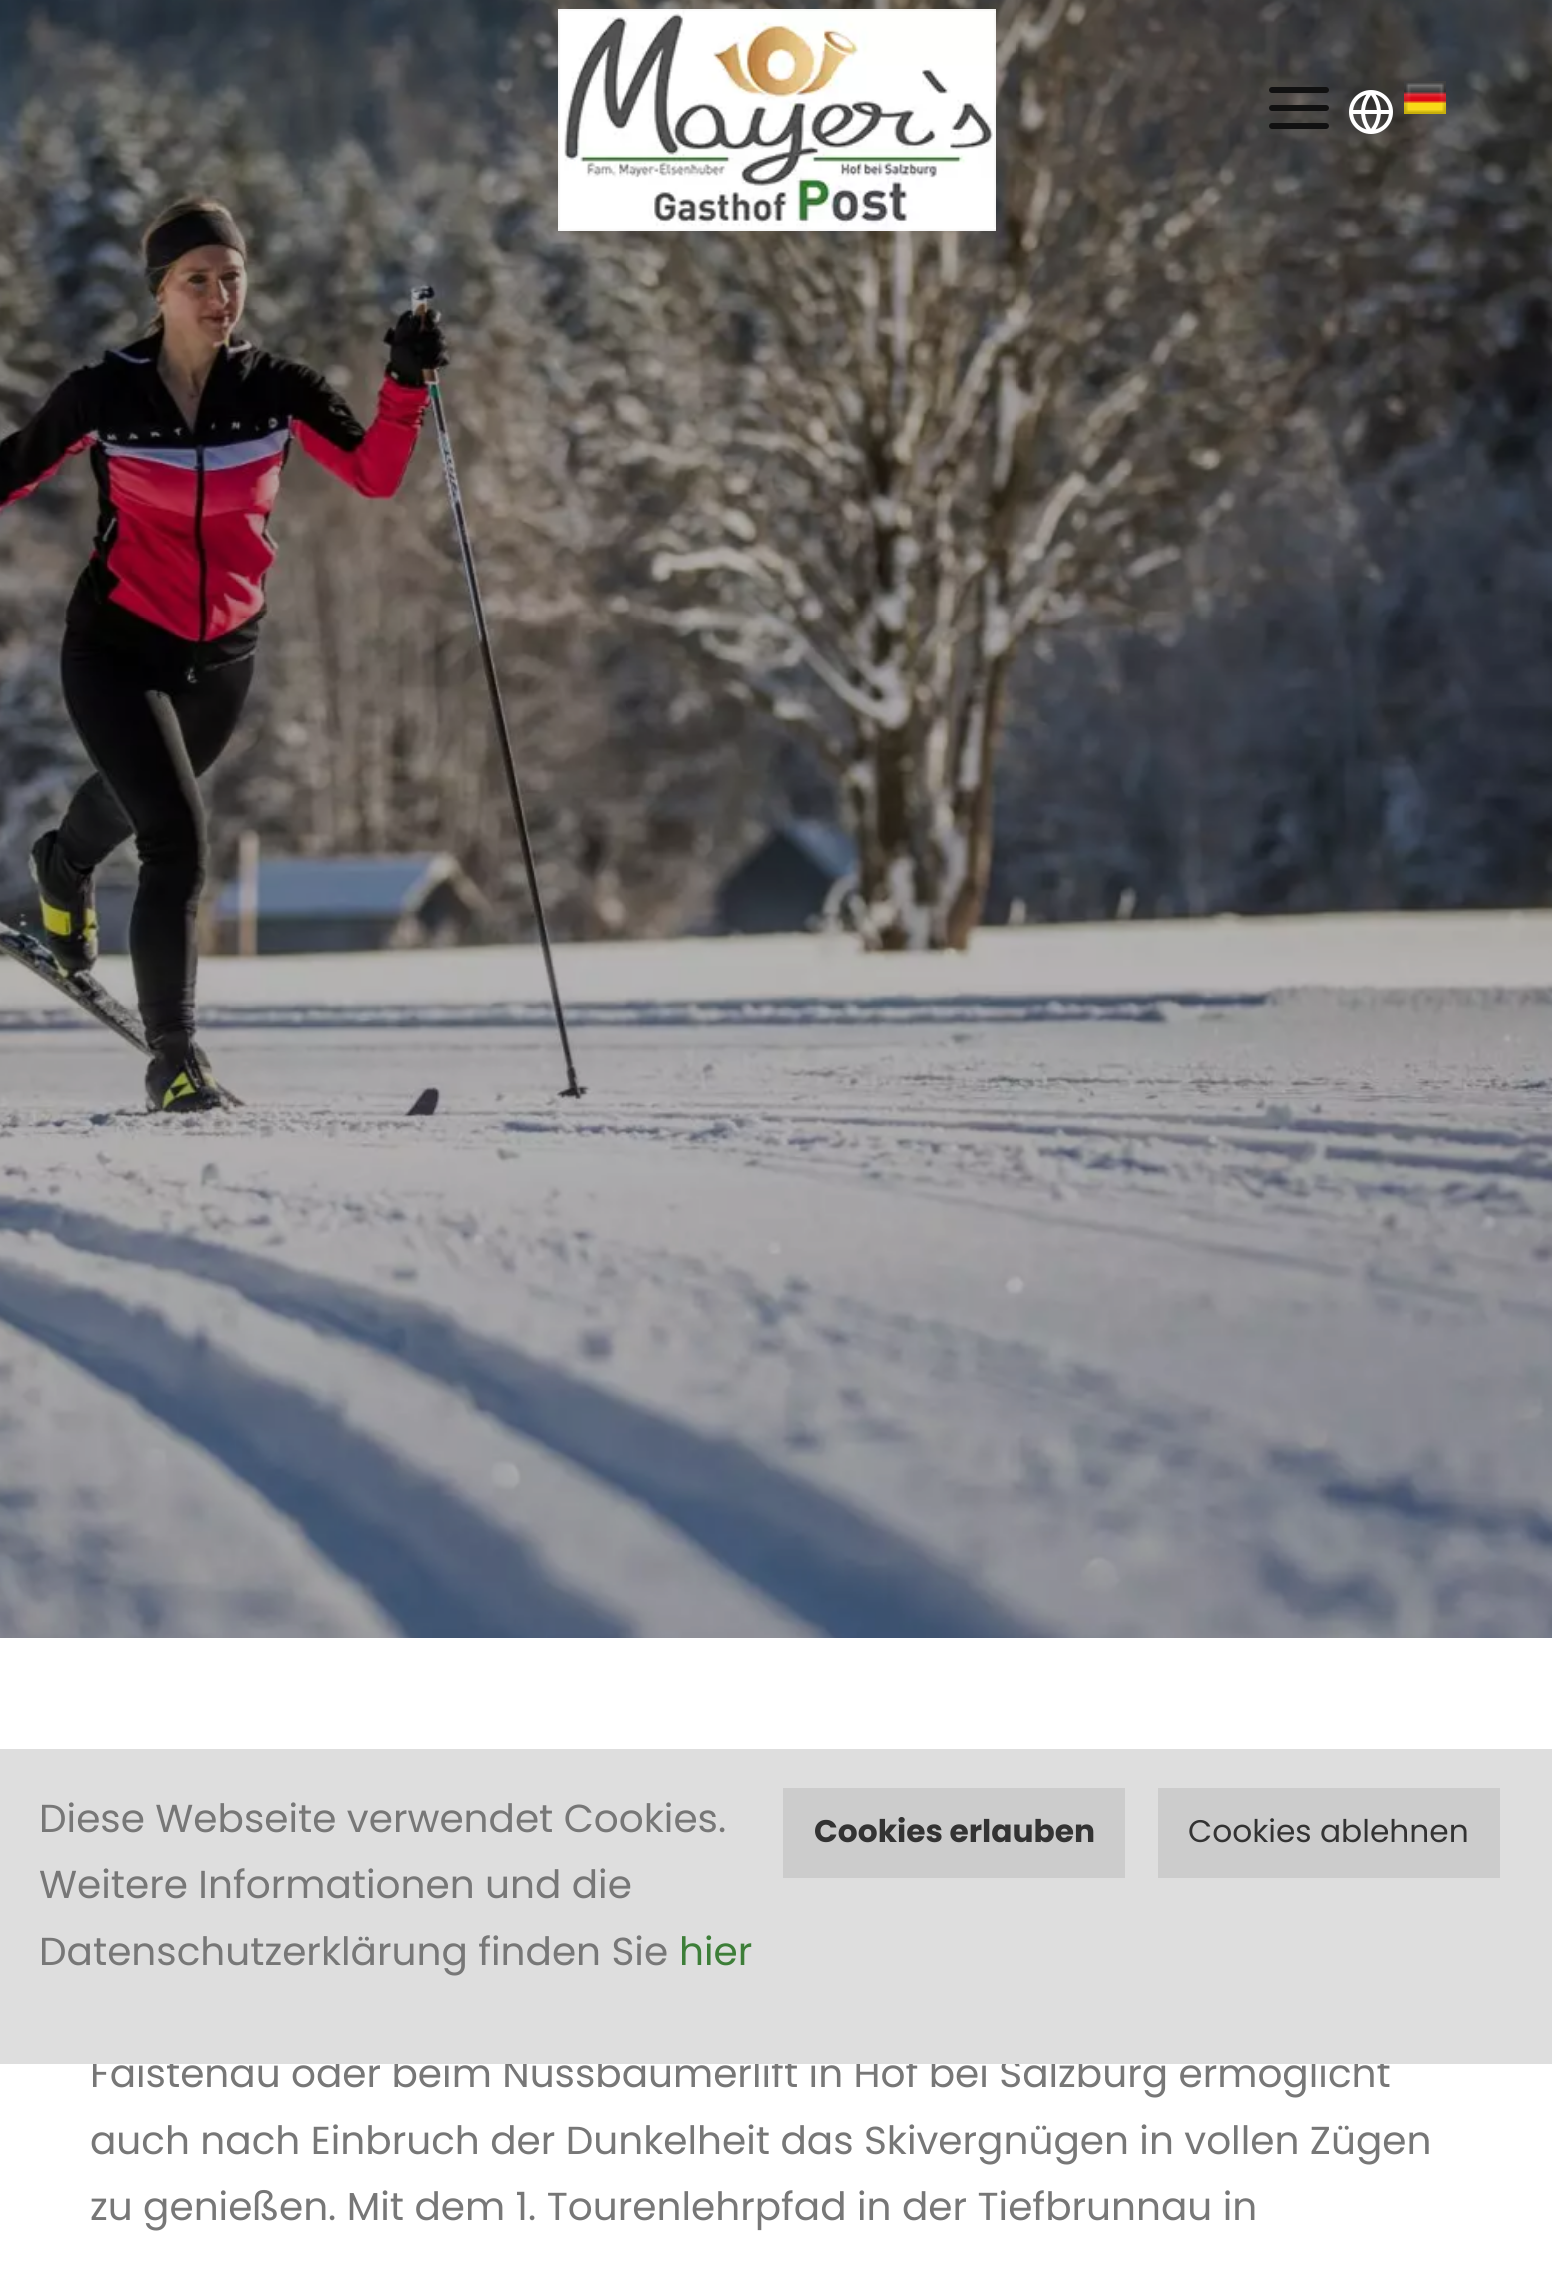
#include <cairo.h>
#include <math.h>
#include <stddef.h>

typedef struct { const char *family; double size; int italic, bold; unsigned color; } style_t;
static cairo_t *ctx;

static void ink(unsigned color) {
    cairo_set_source_rgb(ctx, (color >> 16) / 255.0, (color >> 8 & 255) / 255.0, (color & 255) / 255.0);
}

static void write(double x, double y, const char *s, const style_t *st) {
    cairo_select_font_face(ctx, st->family, st->italic ? CAIRO_FONT_SLANT_ITALIC : CAIRO_FONT_SLANT_NORMAL,
        st->bold ? CAIRO_FONT_WEIGHT_BOLD : CAIRO_FONT_WEIGHT_NORMAL);
    cairo_set_font_size(ctx, st->size);
    ink(st->color);
    cairo_move_to(ctx, x, y);
    cairo_show_text(ctx, s);
}

static void block(double x, double y, double w, double h, unsigned color) {
    ink(color);
    cairo_rectangle(ctx, x, y, w, h);
    cairo_fill(ctx);
}

static void round_path(double x, double y, double w, double h, double r) {
    cairo_new_sub_path(ctx);
    cairo_arc(ctx, x + w - r, y + h - r, r, 0, M_PI / 2);
    cairo_arc(ctx, x + r, y + h - r, r, M_PI / 2, M_PI);
    cairo_arc(ctx, x + r, y + r, r, M_PI, 1.5 * M_PI);
    cairo_arc(ctx, x + w - r, y + r, r, 1.5 * M_PI, 2 * M_PI);
    cairo_close_path(ctx);
}

static void paste(const char *path, double x, double y, double w, double h) {
    cairo_surface_t *image = cairo_image_surface_create_from_png(path);
    cairo_save(ctx);
    cairo_set_source_surface(ctx, image, x, y);
    cairo_rectangle(ctx, x, y, w, h);
    cairo_fill(ctx);
    cairo_restore(ctx);
    cairo_surface_destroy(image);
}

static const style_t s1 = {"Poppins", 39, 0, 0, 0x777777};
static const style_t s2 = {"Poppins", 31.25, 0, 1, 0x333333};
static const style_t s3 = {"Poppins", 31.25, 0, 0, 0x333333};
static const style_t s4 = {"Poppins", 39, 0, 0, 0x3d7e38};

int main(void) {
    cairo_surface_t *surface = cairo_image_surface_create(CAIRO_FORMAT_RGB24, 1552, 2273);
    ctx = cairo_create(surface);
    cairo_font_options_t *options = cairo_font_options_create();
    cairo_font_options_set_hint_metrics(options, CAIRO_HINT_METRICS_OFF);
    cairo_font_options_set_hint_style(options, CAIRO_HINT_STYLE_NONE);
    cairo_set_font_options(ctx, options);
    cairo_set_miter_limit(ctx, 4);
    ink(0xffffff);
    cairo_paint(ctx);
    write(90, 2087, "Faistenau oder beim Nussbaumerlift in Hof bei Salzburg ermöglicht", &s1);
    block(0, 1749, 1552, 315, 0xdedede);
    write(39, 1832, "Diese Webseite verwendet Cookies.", &s1);
    block(783, 1788, 342, 90, 0xcccccc);
    write(814, 1842, "Cookies erlauben", &s2);
    block(1158, 1788, 342, 90, 0xcccccc);
    write(1188, 1842, "Cookies ablehnen", &s3);
    write(39, 1898, "Weitere Informationen und die", &s1);
    write(39, 1965, "Datenschutzerklärung finden Sie", &s1);
    write(679, 1965, "hier", &s4);
    paste("pic1.png", 0, 0, 1552, 1638);
    paste("pic2.png", 558, 9, 438, 222);
    ink(0x111111);
    round_path(1269, 105, 60, 6, 3);
    cairo_fill(ctx);
    round_path(1269, 87, 60, 6, 3);
    cairo_fill(ctx);
    round_path(1269, 123, 60, 6, 3);
    cairo_fill(ctx);
    paste("pic3.png", 1349, 90, 44, 44);
    paste("pic4.png", 1404, 81, 42, 33);
    write(90, 2154, "auch nach Einbruch der Dunkelheit das Skivergnügen in vollen Zügen", &s1);
    write(90, 2220, "zu genießen. Mit dem 1. Tourenlehrpfad in der Tiefbrunnau in", &s1);
    cairo_surface_write_to_png(surface, "screenshot.png");
    cairo_font_options_destroy(options);
    cairo_destroy(ctx);
    cairo_surface_destroy(surface);
    return 0;
}
